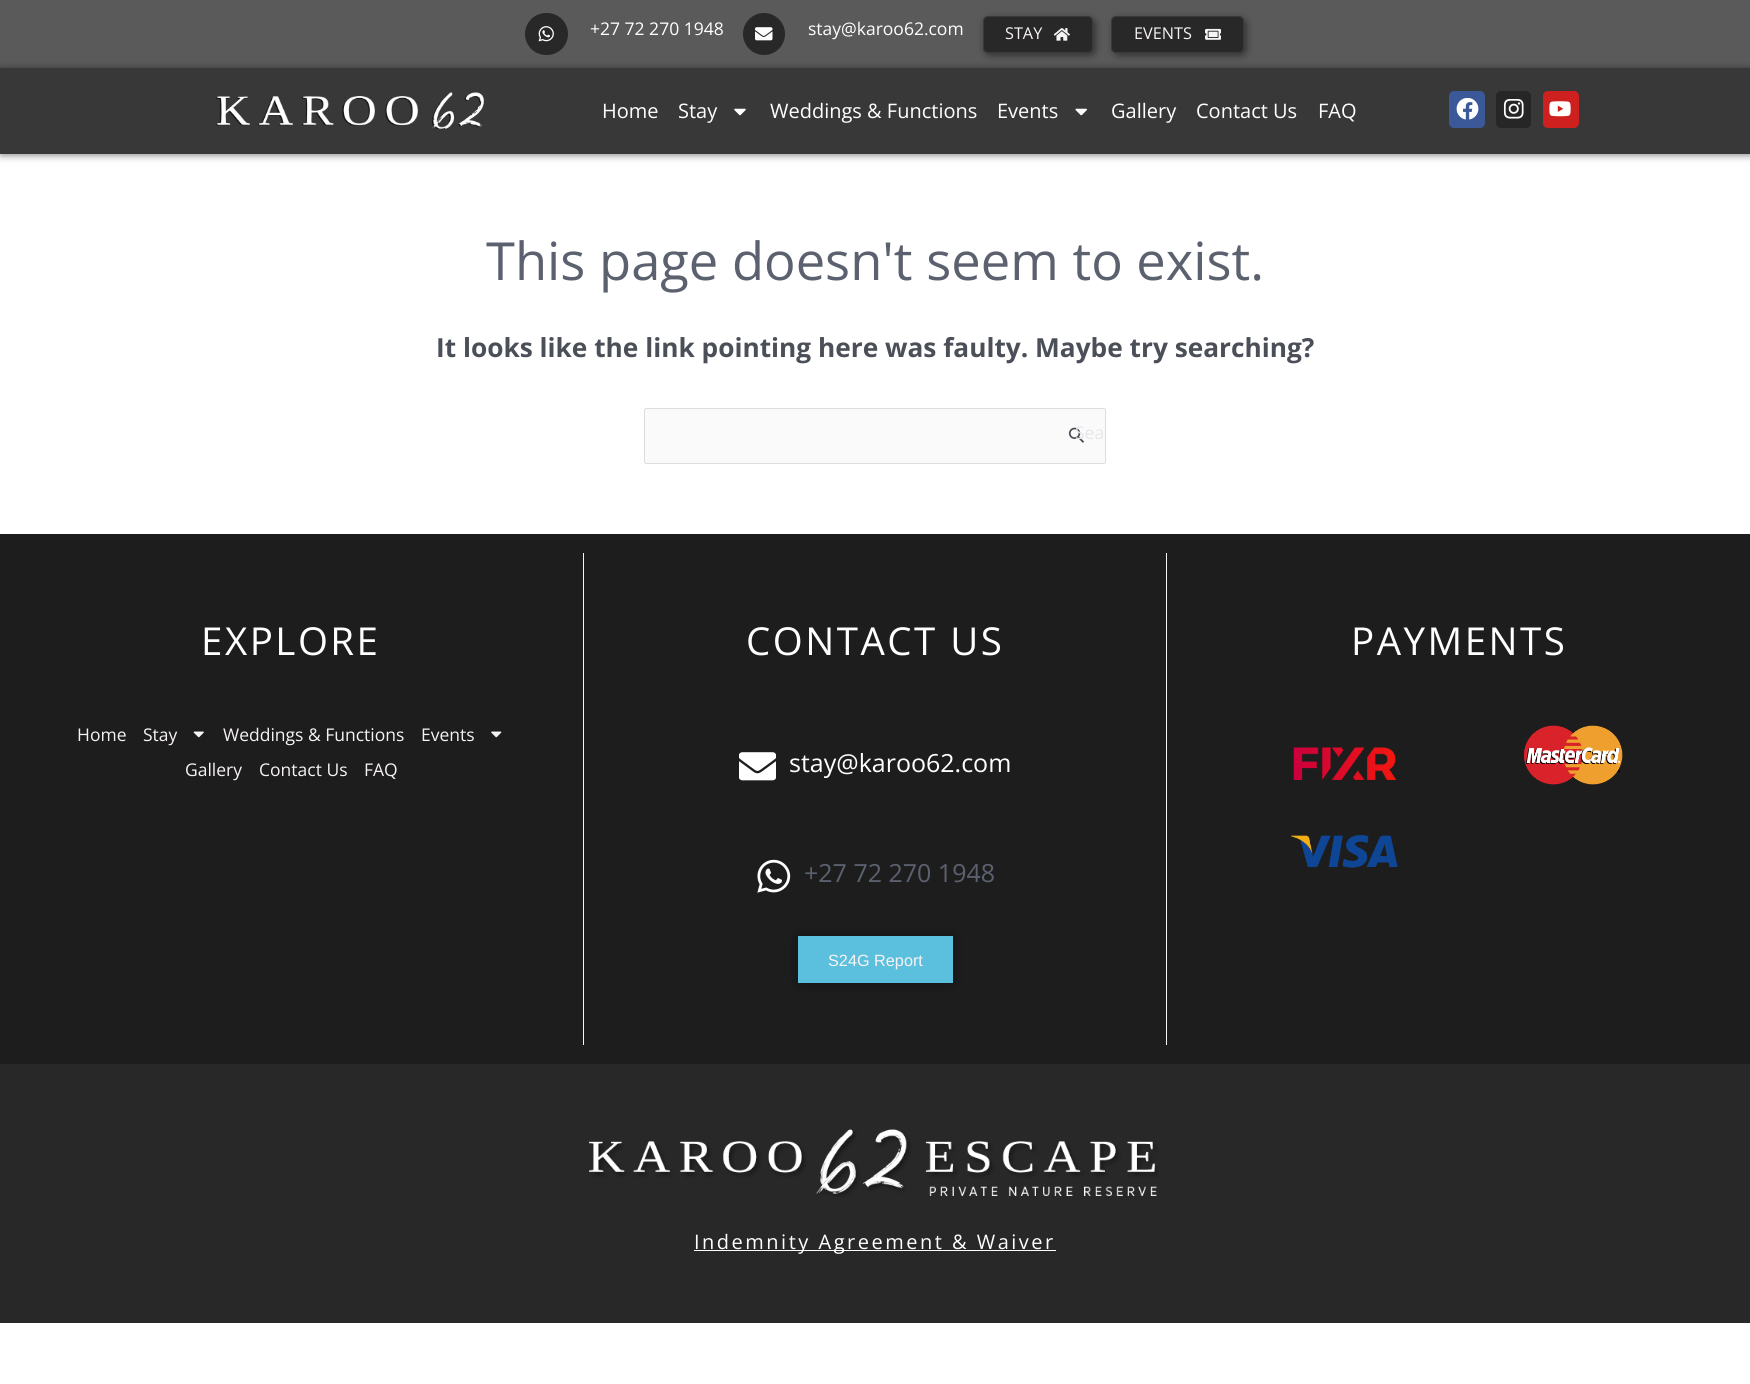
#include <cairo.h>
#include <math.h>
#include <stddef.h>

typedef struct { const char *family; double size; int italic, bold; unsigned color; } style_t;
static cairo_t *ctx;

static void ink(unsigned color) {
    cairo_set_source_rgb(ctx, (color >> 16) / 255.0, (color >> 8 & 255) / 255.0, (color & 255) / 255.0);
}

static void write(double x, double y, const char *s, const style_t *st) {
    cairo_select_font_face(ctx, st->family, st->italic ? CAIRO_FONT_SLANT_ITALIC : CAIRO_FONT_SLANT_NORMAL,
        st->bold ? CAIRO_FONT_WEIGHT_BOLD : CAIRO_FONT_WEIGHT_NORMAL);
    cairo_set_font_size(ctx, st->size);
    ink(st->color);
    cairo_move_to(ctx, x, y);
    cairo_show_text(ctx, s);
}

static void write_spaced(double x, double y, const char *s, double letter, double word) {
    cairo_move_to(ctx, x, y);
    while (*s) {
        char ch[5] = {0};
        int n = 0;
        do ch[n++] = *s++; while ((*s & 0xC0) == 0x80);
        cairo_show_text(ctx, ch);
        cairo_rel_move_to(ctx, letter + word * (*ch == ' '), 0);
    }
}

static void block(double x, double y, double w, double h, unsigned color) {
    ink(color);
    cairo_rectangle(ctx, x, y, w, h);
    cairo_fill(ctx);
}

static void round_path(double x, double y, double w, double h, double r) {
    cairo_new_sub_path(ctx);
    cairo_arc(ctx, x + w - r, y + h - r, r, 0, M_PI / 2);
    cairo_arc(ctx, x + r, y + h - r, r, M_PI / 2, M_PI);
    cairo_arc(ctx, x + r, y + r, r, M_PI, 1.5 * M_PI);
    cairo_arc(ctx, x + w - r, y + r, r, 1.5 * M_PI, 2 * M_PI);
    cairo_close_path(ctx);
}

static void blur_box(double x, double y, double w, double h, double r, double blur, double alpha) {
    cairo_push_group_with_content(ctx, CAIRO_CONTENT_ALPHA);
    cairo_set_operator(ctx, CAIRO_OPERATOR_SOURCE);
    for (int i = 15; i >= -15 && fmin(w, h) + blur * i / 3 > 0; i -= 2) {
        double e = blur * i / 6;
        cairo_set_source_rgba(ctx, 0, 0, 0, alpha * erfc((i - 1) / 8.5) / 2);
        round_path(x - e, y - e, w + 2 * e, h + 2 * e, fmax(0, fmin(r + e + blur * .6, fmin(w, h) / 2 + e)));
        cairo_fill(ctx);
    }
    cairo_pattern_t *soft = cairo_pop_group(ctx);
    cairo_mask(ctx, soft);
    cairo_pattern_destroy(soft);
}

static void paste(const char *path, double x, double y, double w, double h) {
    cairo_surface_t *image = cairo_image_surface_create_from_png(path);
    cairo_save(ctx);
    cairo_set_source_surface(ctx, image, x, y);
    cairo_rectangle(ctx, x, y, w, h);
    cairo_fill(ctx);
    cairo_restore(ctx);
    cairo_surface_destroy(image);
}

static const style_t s1 = {"Open Sans", 17.5, 0, 0, 0xffffff};
static const style_t s2 = {"Open Sans", 16.25, 0, 0, 0xf7f3f3};
static const style_t s3 = {"Open Sans", 20, 0, 0, 0xffffff};
static const style_t s4 = {"Open Sans", 52.5, 0, 0, 0x5c616f};
static const style_t s5 = {"Open Sans", 26.25, 0, 1, 0x4b4f58};
static const style_t s6 = {"Open Sans", 17.5, 0, 0, 0xe7e7e8};
static const style_t s7 = {"Open Sans", 17.5, 0, 0, 0xf7f3f3};
static const style_t s8 = {"Open Sans", 25, 0, 0, 0xffffff};
static const style_t s9 = {"Open Sans", 25, 0, 0, 0x5c616f};
static const style_t s10 = {"Liberation Sans", 16.25, 0, 0, 0xf7f3f3};

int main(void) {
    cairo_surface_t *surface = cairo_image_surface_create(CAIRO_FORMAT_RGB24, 1750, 1384);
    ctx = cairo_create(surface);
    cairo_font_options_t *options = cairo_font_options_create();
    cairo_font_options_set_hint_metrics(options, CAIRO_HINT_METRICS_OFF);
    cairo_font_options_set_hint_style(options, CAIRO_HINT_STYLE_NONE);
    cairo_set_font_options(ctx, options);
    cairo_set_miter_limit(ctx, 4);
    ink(0xffffff);
    cairo_paint(ctx);
    block(0, 0, 1750, 68, 0x5a5a5a);
    ink(0x292829);
    round_path(525, 13, 43, 42, 21);
    cairo_fill(ctx);
    paste("pic1.png", 538, 26, 16, 16);
    write(590, 35, "+27 72 270 1948", &s1);
    ink(0x292829);
    cairo_new_path(ctx);
    cairo_arc(ctx, 764, 34, 21, 0, 2 * M_PI);
    cairo_fill(ctx);
    paste("pic2.png", 755, 27, 18, 14);
    write(808, 35, "stay@karoo62.com", &s1);
    ink(0x000000);
    blur_box(985, 19, 110, 36, 5, 4, 0.5);
    ink(0x292829);
    round_path(983.5, 16.5, 109, 36, 4.5);
    cairo_fill_preserve(ctx);
    ink(0x3a3a3a);
    cairo_set_line_width(ctx, 1);
    cairo_stroke(ctx);
    write(1005, 39, "STAY", &s2);
    paste("pic3.png", 1054, 28, 16, 13);
    ink(0x000000);
    blur_box(1114, 19, 132, 36, 5, 4, 0.5);
    ink(0x292829);
    round_path(1111.5, 16.5, 132, 36, 4.5);
    cairo_fill_preserve(ctx);
    ink(0x3a3a3a);
    cairo_stroke(ctx);
    write(1134, 39, "EVENTS", &s2);
    paste("pic4.png", 1205, 28, 16, 12);
    ink(0x000000);
    blur_box(1, 69, 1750, 86, 0, 4, 0.5);
    block(0, 68, 1750, 86, 0x383838);
    paste("pic5.png", 216, 92, 268, 37);
    write(602, 118, "Home", &s3);
    write(678, 118, "Stay", &s3);
    paste("pic6.png", 734, 108, 12, 8);
    write(770, 118, "Weddings & Functions", &s3);
    write(997, 118, "Events", &s3);
    paste("pic7.png", 1075, 108, 12, 8);
    write(1111, 118, "Gallery", &s3);
    write(1196, 118, "Contact Us", &s3);
    write(1318, 118, "FAQ", &s3);
    ink(0x3b5998);
    round_path(1449, 91, 36, 37, 5);
    cairo_fill(ctx);
    paste("pic8.png", 1456, 98, 23, 22);
    ink(0x262626);
    round_path(1496, 91, 35, 37, 5);
    cairo_fill(ctx);
    paste("pic9.png", 1503, 99, 21, 20);
    ink(0xcd201f);
    round_path(1543, 91, 36, 37, 5);
    cairo_fill(ctx);
    paste("pic10.png", 1549, 101, 22, 16);
    write(486, 280, "This page doesn't seem to exist.", &s4);
    write(436, 357, "It looks like the link pointing here was faulty. Maybe try searching?", &s5);
    ink(0xfafafa);
    round_path(644.5, 408.5, 461, 55, 2);
    cairo_fill_preserve(ctx);
    ink(0xdddddd);
    cairo_stroke(ctx);
    paste("pic11.png", 1068, 427, 17, 16);
    write(1075, 439, "Sea", &s6);
    block(0, 534, 1750, 530, 0x1d1d1d);
    block(583, 553, 1, 492, 0xf5f5f5);
    cairo_set_font_size(ctx, 38.5);
    ink(0xffffff);
    write_spaced(201, 655, "EXPLORE", 2.5, 0);
    write(77, 741, "Home", &s7);
    write(143, 741, "Stay", &s7);
    paste("pic12.png", 193, 731, 11, 7);
    write(223, 741, "Weddings & Functions", &s7);
    write(421, 741, "Events", &s7);
    paste("pic13.png", 491, 731, 11, 7);
    write(185, 776, "Gallery", &s7);
    write(259, 776, "Contact Us", &s7);
    write(364, 776, "FAQ", &s7);
    cairo_set_font_size(ctx, 38.5);
    ink(0xffffff);
    write_spaced(746, 655, "CONTACT US", 2.5, 0);
    paste("pic14.png", 739, 752, 37, 29);
    write(789, 772, "stay@karoo62.com", &s8);
    paste("pic15.png", 757, 859, 34, 34);
    write(804, 882, "+27 72 270 1948", &s9);
    ink(0x000000);
    blur_box(798, 936, 155, 47, 0, 6, 0.36);
    block(798, 936, 155, 47, 0x5bc0de);
    write(828, 966, "S24G Report", &s10);
    block(1166, 553, 1, 492, 0xf5f5f5);
    cairo_select_font_face(ctx, "Open Sans", CAIRO_FONT_SLANT_NORMAL, CAIRO_FONT_WEIGHT_NORMAL);
    cairo_set_font_size(ctx, 38.5);
    ink(0xffffff);
    write_spaced(1351, 655, "PAYMENTS", 2.5, 0);
    paste("pic16.png", 1293, 747, 104, 33);
    paste("pic17.png", 1524, 725, 99, 60);
    paste("pic18.png", 1291, 835, 107, 33);
    block(0, 1064, 1750, 259, 0x292829);
    paste("pic19.png", 589, 1129, 570, 68);
    block(694, 1250, 362, 1, 0xffffff);
    cairo_set_font_size(ctx, 20);
    write_spaced(694, 1249, "Indemnity Agreement & Waiver", 2.5, 0);
    cairo_surface_write_to_png(surface, "screenshot.png");
    cairo_font_options_destroy(options);
    cairo_destroy(ctx);
    cairo_surface_destroy(surface);
    return 0;
}
